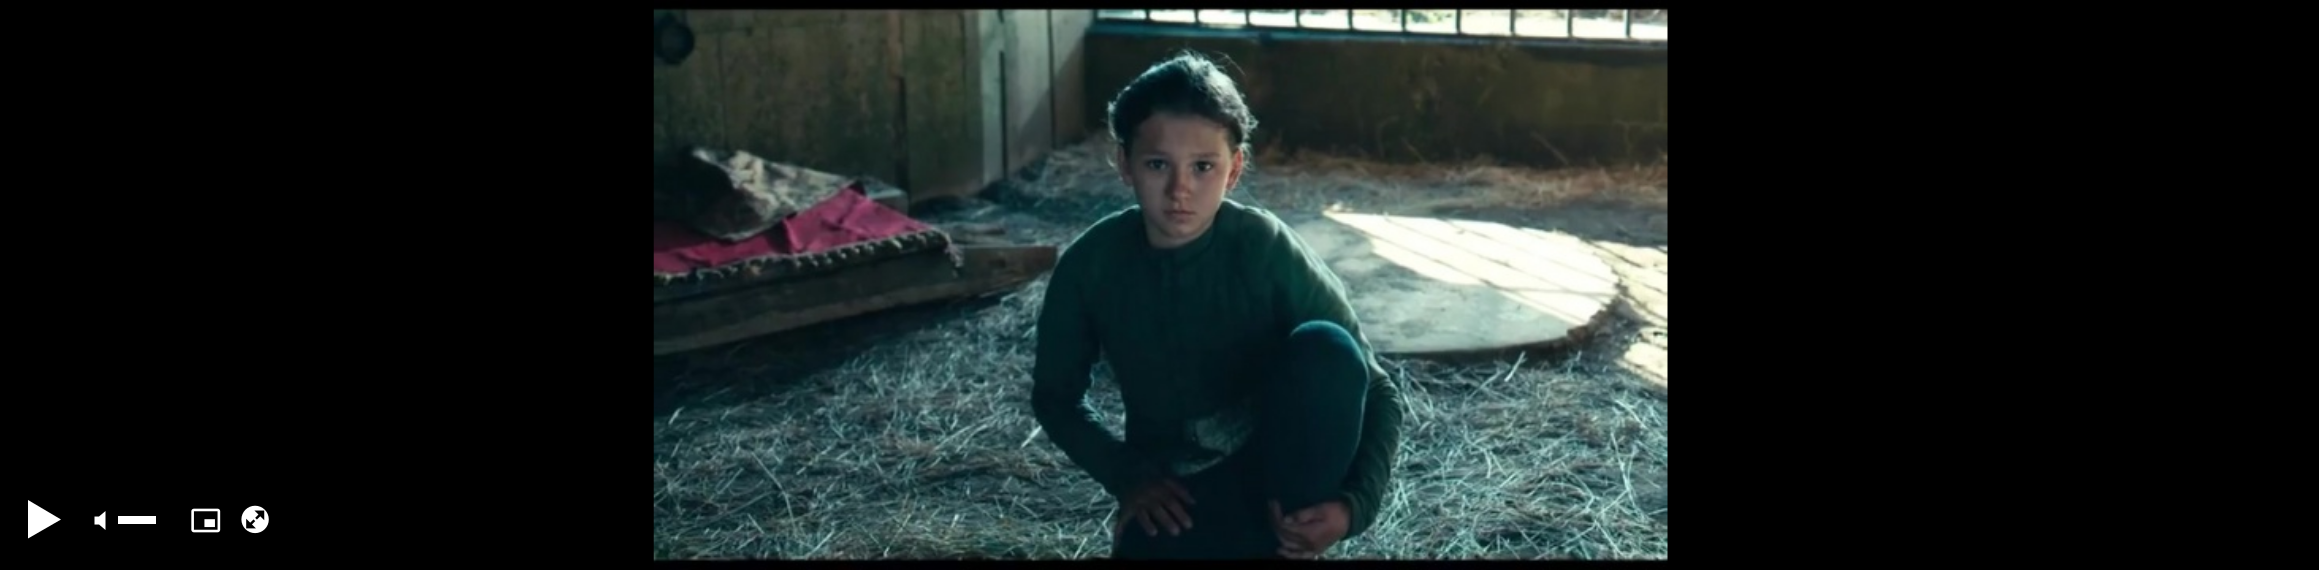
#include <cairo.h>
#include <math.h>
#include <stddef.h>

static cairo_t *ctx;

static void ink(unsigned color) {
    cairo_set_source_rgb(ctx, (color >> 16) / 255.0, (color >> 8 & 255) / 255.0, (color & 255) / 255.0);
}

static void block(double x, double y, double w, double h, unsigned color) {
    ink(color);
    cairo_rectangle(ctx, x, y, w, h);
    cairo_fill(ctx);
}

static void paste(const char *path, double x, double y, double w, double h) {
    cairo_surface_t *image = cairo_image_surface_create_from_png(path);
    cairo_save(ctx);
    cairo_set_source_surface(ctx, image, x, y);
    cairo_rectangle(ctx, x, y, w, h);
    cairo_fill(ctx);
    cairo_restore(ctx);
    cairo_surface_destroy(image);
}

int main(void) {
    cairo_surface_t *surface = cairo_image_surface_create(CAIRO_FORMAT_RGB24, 2319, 570);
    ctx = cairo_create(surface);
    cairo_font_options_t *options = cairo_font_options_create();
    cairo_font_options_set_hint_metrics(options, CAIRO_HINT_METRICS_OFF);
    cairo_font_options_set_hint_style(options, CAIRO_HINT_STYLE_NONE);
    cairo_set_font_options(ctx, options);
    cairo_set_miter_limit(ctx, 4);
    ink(0x000000);
    cairo_paint(ctx);
    ink(0xffffff);
    cairo_new_path(ctx);
    cairo_move_to(ctx, 28, 519.5);
    cairo_line_to(ctx, 28, 500);
    cairo_line_to(ctx, 61, 519.5);
    cairo_line_to(ctx, 28, 538.5);
    cairo_close_path(ctx);
    cairo_fill(ctx);
    cairo_new_path(ctx);
    cairo_move_to(ctx, 105.5, 511);
    cairo_line_to(ctx, 99, 516.5);
    cairo_line_to(ctx, 94.5, 516.5);
    cairo_line_to(ctx, 94.5, 524.5);
    cairo_line_to(ctx, 99, 524.5);
    cairo_line_to(ctx, 105.5, 530);
    cairo_close_path(ctx);
    cairo_fill(ctx);
    block(118, 516, 38, 8, 0xffffff);
    paste("pic1.png", 191, 508, 30, 25);
    paste("pic2.png", 241, 505, 28, 29);
    paste("pic3.png", 653, 0, 1015, 570);
    cairo_surface_write_to_png(surface, "screenshot.png");
    cairo_font_options_destroy(options);
    cairo_destroy(ctx);
    cairo_surface_destroy(surface);
    return 0;
}
